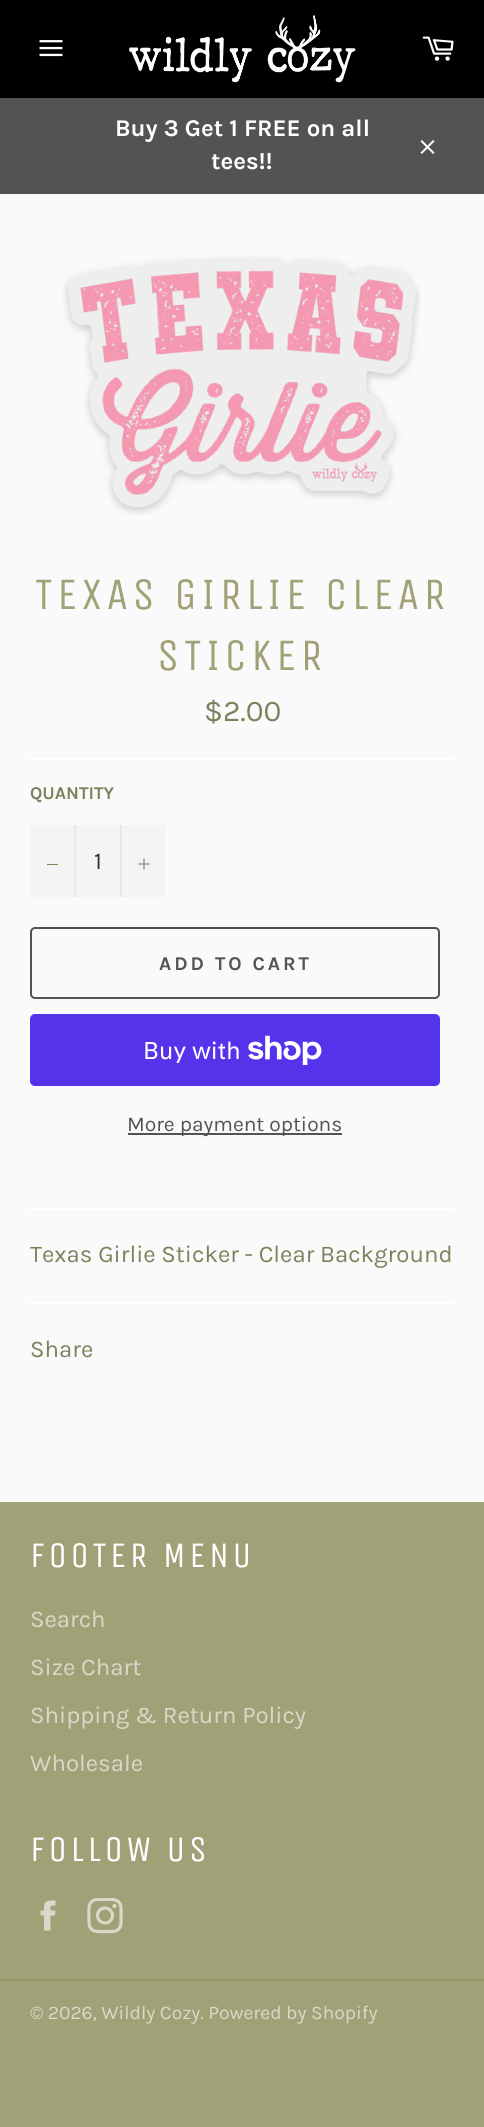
#include <cairo.h>
#include <math.h>
#include <stddef.h>

typedef struct { const char *family; double size; int italic, bold; unsigned color; } style_t;
static cairo_t *ctx;

static void ink(unsigned color) {
    cairo_set_source_rgb(ctx, (color >> 16) / 255.0, (color >> 8 & 255) / 255.0, (color & 255) / 255.0);
}

static void write(double x, double y, const char *s, const style_t *st) {
    cairo_select_font_face(ctx, st->family, st->italic ? CAIRO_FONT_SLANT_ITALIC : CAIRO_FONT_SLANT_NORMAL,
        st->bold ? CAIRO_FONT_WEIGHT_BOLD : CAIRO_FONT_WEIGHT_NORMAL);
    cairo_set_font_size(ctx, st->size);
    ink(st->color);
    cairo_move_to(ctx, x, y);
    cairo_show_text(ctx, s);
}

static void write_spaced(double x, double y, const char *s, double letter, double word) {
    cairo_move_to(ctx, x, y);
    while (*s) {
        char ch[5] = {0};
        int n = 0;
        do ch[n++] = *s++; while ((*s & 0xC0) == 0x80);
        cairo_show_text(ctx, ch);
        cairo_rel_move_to(ctx, letter + word * (*ch == ' '), 0);
    }
}

static void block(double x, double y, double w, double h, unsigned color) {
    ink(color);
    cairo_rectangle(ctx, x, y, w, h);
    cairo_fill(ctx);
}

static void round_path(double x, double y, double w, double h, double r) {
    cairo_new_sub_path(ctx);
    cairo_arc(ctx, x + w - r, y + h - r, r, 0, M_PI / 2);
    cairo_arc(ctx, x + r, y + h - r, r, M_PI / 2, M_PI);
    cairo_arc(ctx, x + r, y + r, r, M_PI, 1.5 * M_PI);
    cairo_arc(ctx, x + w - r, y + r, r, 1.5 * M_PI, 2 * M_PI);
    cairo_close_path(ctx);
}

static void paste(const char *path, double x, double y, double w, double h) {
    cairo_surface_t *image = cairo_image_surface_create_from_png(path);
    cairo_save(ctx);
    cairo_set_source_surface(ctx, image, x, y);
    cairo_rectangle(ctx, x, y, w, h);
    cairo_fill(ctx);
    cairo_restore(ctx);
    cairo_surface_destroy(image);
}

static const style_t s1 = {"Karla", 24, 0, 1, 0xffffff};
static const style_t s2 = {"Karla", 30, 0, 0, 0x80805d};
static const style_t s3 = {"Karla", 18, 0, 1, 0x80805d};
static const style_t s4 = {"Karla", 24, 0, 0, 0x333333};
static const style_t s5 = {"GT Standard", 24, 0, 0, 0xffffff};
static const style_t s6 = {"Karla", 21, 0, 0, 0x535353};
static const style_t s7 = {"Karla", 24, 0, 0, 0x80805d};
static const style_t s8 = {"Karla", 24, 0, 0, 0xd9d9c9};
static const style_t s9 = {"Karla", 19.25, 0, 0, 0xd9d9c9};

int main(void) {
    cairo_surface_t *surface = cairo_image_surface_create(CAIRO_FORMAT_RGB24, 484, 2127);
    ctx = cairo_create(surface);
    cairo_font_options_t *options = cairo_font_options_create();
    cairo_font_options_set_hint_metrics(options, CAIRO_HINT_METRICS_OFF);
    cairo_font_options_set_hint_style(options, CAIRO_HINT_STYLE_NONE);
    cairo_set_font_options(ctx, options);
    cairo_set_miter_limit(ctx, 4);
    ink(0xa1a178);
    cairo_paint(ctx);
    block(0, 0, 484, 98, 0x000000);
    paste("pic1.png", 39, 40, 24, 17);
    paste("pic2.png", 129, 15, 227, 68);
    paste("pic3.png", 422, 36, 32, 25);
    block(0, 98, 484, 96, 0x535353);
    write(115, 136, "Buy 3 Get 1 FREE on all", &s1);
    write(211, 169, "tees!!", &s1);
    paste("pic4.png", 420, 140, 15, 14);
    block(0, 194, 484, 1308, 0xfafafa);
    paste("pic5.png", 63, 256, 358, 259);
    cairo_select_font_face(ctx, "Unica One", CAIRO_FONT_SLANT_NORMAL, CAIRO_FONT_WEIGHT_NORMAL);
    cairo_set_font_size(ctx, 45);
    ink(0xa1a178);
    write_spaced(35, 609, "TEXAS GIRLIE CLEAR", 4.5, 0);
    write_spaced(157, 670, "STICKER", 4.5, 0);
    write(204, 721, "$2.00", &s2);
    block(30, 758, 425, 2, 0xffffff);
    write(30, 799, "QUANTITY", &s3);
    block(30, 825, 135, 72, 0xf4f4f4);
    block(74, 825, 2, 72, 0xe7e7e7);
    block(47, 864, 11, 1, 0x80805d);
    write(94, 869, "1", &s4);
    block(120, 825, 2, 72, 0xe7e7e7);
    paste("pic6.png", 138, 858, 12, 12);
    round_path(31, 928, 408, 70, 4);
    ink(0x535353);
    cairo_stroke(ctx);
    cairo_select_font_face(ctx, "Karla", CAIRO_FONT_SLANT_NORMAL, CAIRO_FONT_WEIGHT_BOLD);
    cairo_set_font_size(ctx, 19.5);
    write_spaced(159, 970, "ADD TO CART", 3, 0);
    ink(0x5433eb);
    round_path(30, 1014, 410, 72, 5);
    cairo_fill(ctx);
    write(143, 1059, "Buy with", &s5);
    paste("pic7.png", 248, 1035, 74, 30);
    block(128, 1133, 214, 2, 0x535353);
    write(127, 1131, "More payment options", &s6);
    block(30, 1208, 425, 2, 0xffffff);
    write(30, 1262, "Texas Girlie Sticker - Clear Background", &s7);
    block(30, 1302, 425, 2, 0xffffff);
    write(30, 1357, "Share", &s7);
    cairo_select_font_face(ctx, "Unica One", CAIRO_FONT_SLANT_NORMAL, CAIRO_FONT_WEIGHT_NORMAL);
    cairo_set_font_size(ctx, 36);
    ink(0xffffff);
    write_spaced(30, 1567, "FOOTER MENU", 3.6, 0);
    write(30, 1627, "Search", &s8);
    write(30, 1675, "Size Chart", &s8);
    write(30, 1723, "Shipping & Return Policy", &s8);
    write(30, 1771, "Wholesale", &s8);
    cairo_select_font_face(ctx, "Unica One", CAIRO_FONT_SLANT_NORMAL, CAIRO_FONT_WEIGHT_NORMAL);
    cairo_set_font_size(ctx, 36);
    ink(0xffffff);
    write_spaced(30, 1861, "FOLLOW US", 3.6, 0);
    paste("pic8.png", 40, 1900, 16, 31);
    paste("pic9.png", 87, 1898, 36, 36);
    block(0, 1979, 484, 2, 0x979769);
    write(30, 2019, "© 2026, Wildly Cozy. Powered by Shopify", &s9);
    cairo_surface_write_to_png(surface, "screenshot.png");
    cairo_font_options_destroy(options);
    cairo_destroy(ctx);
    cairo_surface_destroy(surface);
    return 0;
}
